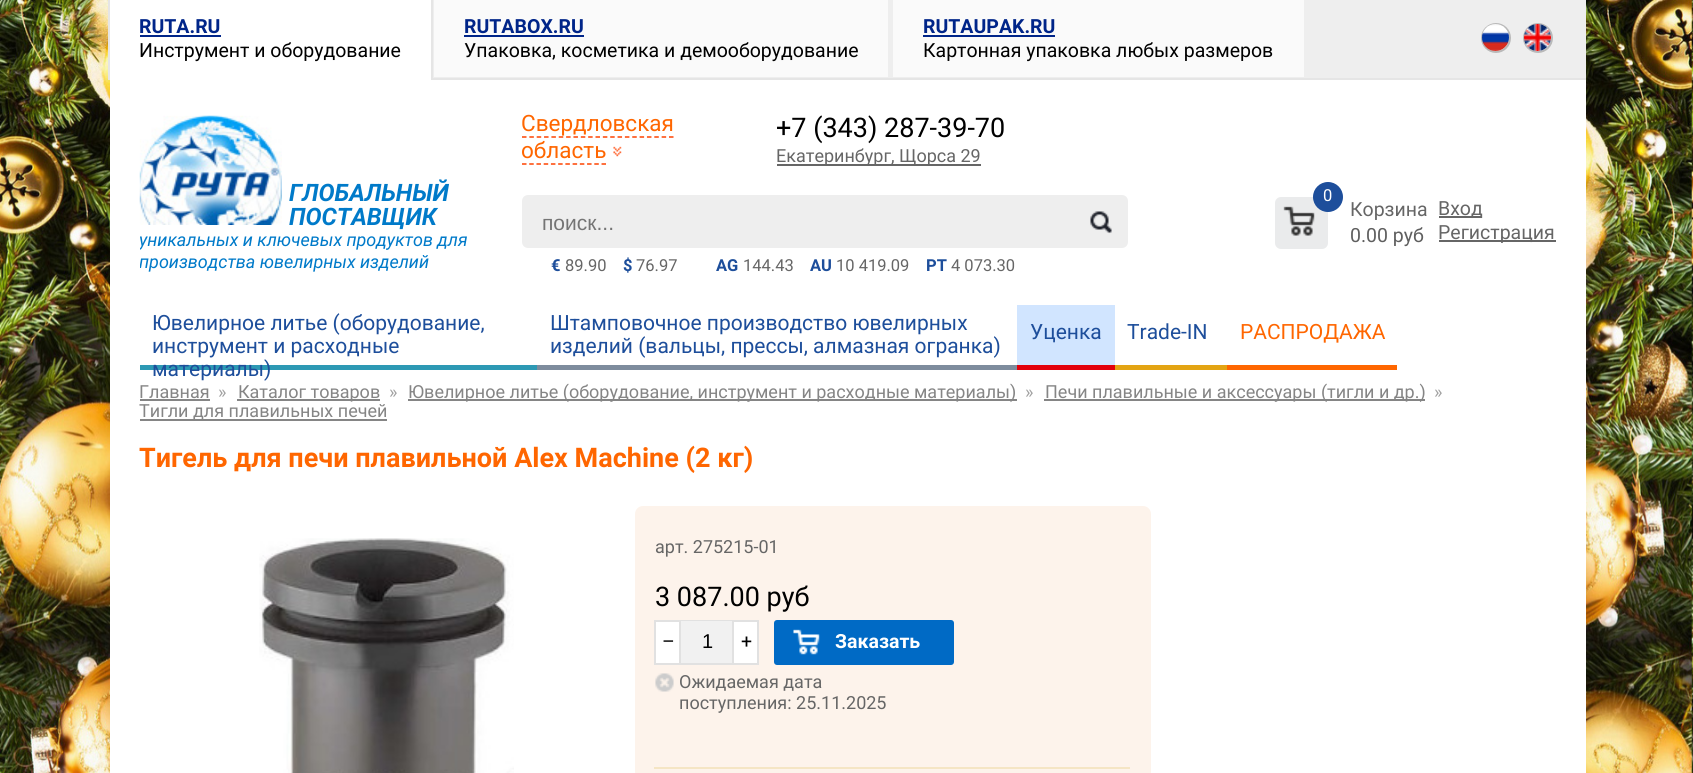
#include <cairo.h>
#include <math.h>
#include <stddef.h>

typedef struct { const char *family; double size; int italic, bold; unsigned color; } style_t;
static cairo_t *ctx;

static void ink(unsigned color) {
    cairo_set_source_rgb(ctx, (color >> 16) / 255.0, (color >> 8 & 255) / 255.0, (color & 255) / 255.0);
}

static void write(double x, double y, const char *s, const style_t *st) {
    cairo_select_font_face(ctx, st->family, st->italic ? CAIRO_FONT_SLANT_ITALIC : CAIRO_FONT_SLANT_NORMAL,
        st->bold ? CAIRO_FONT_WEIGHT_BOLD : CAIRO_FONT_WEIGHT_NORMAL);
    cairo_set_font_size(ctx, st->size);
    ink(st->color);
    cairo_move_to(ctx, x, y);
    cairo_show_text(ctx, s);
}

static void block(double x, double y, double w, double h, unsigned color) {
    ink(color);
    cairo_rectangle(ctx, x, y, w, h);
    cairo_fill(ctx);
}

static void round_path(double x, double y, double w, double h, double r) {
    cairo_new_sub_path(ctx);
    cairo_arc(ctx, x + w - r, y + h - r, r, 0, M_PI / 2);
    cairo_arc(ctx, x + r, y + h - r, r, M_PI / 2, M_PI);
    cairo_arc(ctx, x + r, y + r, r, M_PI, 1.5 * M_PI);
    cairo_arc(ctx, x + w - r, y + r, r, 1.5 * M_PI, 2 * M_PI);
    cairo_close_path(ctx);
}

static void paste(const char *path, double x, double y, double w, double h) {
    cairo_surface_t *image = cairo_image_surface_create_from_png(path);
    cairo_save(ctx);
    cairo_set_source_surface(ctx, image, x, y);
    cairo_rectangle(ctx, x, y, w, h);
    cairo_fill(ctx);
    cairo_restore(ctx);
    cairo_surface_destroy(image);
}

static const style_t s1 = {"Roboto", 19.5, 0, 1, 0x002589};
static const style_t s2 = {"Roboto", 19.5, 0, 0, 0x000000};
static const style_t s3 = {"Roboto", 22.5, 0, 0, 0xff6600};
static const style_t s4 = {"Roboto", 27, 0, 0, 0x000000};
static const style_t s5 = {"Roboto", 18, 0, 0, 0x666666};
static const style_t s6 = {"Roboto", 24, 1, 1, 0x007ac9};
static const style_t s7 = {"Roboto", 18, 1, 0, 0x007ac9};
static const style_t s8 = {"Liberation Sans", 21, 0, 0, 0x757575};
static const style_t s9 = {"Roboto", 16.5, 0, 0, 0xffffff};
static const style_t s10 = {"Roboto", 19.5, 0, 0, 0x666666};
static const style_t s11 = {"Roboto", 19.5, 0, 0, 0x5f5f5f};
static const style_t s12 = {"Roboto", 16.5, 0, 1, 0x1d4e9b};
static const style_t s13 = {"Roboto", 16.5, 0, 0, 0x666666};
static const style_t s14 = {"Roboto", 21, 0, 0, 0x1d4e9b};
static const style_t s15 = {"Roboto", 21, 0, 0, 0xff6600};
static const style_t s16 = {"Roboto", 18, 0, 0, 0x858585};
static const style_t s17 = {"Roboto", 18, 0, 0, 0xa0a0a0};
static const style_t s18 = {"Roboto", 27, 0, 1, 0xff6600};
static const style_t s19 = {"Liberation Sans", 20, 0, 0, 0x000000};
static const style_t s20 = {"Roboto", 19.5, 0, 1, 0xffffff};

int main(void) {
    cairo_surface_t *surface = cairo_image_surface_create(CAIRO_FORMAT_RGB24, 1693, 773);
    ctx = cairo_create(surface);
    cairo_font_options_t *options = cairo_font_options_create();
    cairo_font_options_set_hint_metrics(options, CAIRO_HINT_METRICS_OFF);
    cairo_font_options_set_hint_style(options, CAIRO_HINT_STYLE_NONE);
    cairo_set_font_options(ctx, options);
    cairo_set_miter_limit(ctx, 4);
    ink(0xffffff);
    cairo_paint(ctx);
    paste("pic1.png", 0, 0, 1693, 773);
    block(110, 80, 1476, 693, 0xffffff);
    block(433, 0, 1153, 78, 0xeeeeee);
    block(433, 78, 1153, 2, 0xe5e5e5);
    block(110, 0, 321, 80, 0xffffff);
    block(431, 0, 2, 80, 0xe5e5e5);
    block(108, 0, 2, 80, 0xe5e5e5);
    write(139, 33, "RUTA.RU", &s1);
    block(140, 35, 81, 2, 0x002589);
    write(139, 57, "Инструмент и оборудование", &s2);
    block(434, 0, 454, 77, 0xfafafa);
    write(464, 33, "RUTABOX.RU", &s1);
    block(464, 35, 120, 2, 0x002589);
    write(464, 57, "Упаковка, косметика и демооборудование", &s2);
    block(893, 0, 411, 77, 0xfafafa);
    write(923, 33, "RUTAUPAK.RU", &s1);
    block(923, 35, 132, 2, 0x002589);
    write(923, 57, "Картонная упаковка любых размеров", &s2);
    cairo_new_path(ctx);
    cairo_arc(ctx, 1496, 38, 14, 0, 2 * M_PI);
    ink(0xb9b9b9);
    cairo_stroke(ctx);
    cairo_arc(ctx, 1538, 38, 14, 0, 2 * M_PI);
    cairo_stroke(ctx);
    paste("pic2.png", 1482, 24, 27, 27);
    paste("pic3.png", 1524, 24, 27, 27);
    write(521, 131, "Свердловская", &s3);
    cairo_new_path(ctx);
    cairo_move_to(ctx, 522, 137);
    cairo_line_to(ctx, 673.5, 137);
    ink(0xfe4200);
    cairo_set_line_width(ctx, 1.5);
    cairo_set_dash(ctx, (double[]){4.5, 2.85}, 2, 0);
    cairo_stroke(ctx);
    write(521, 158, "область", &s3);
    cairo_new_path(ctx);
    cairo_move_to(ctx, 522, 164);
    cairo_line_to(ctx, 606, 164);
    ink(0xfe4200);
    cairo_set_dash(ctx, (double[]){4.5, 2.73}, 2, 0);
    cairo_stroke(ctx);
    paste("pic4.png", 613, 146, 9, 11);
    write(776, 137, "+7 (343) 287-39-70", &s4);
    block(777, 164, 204, 2, 0x666666);
    write(776, 162, "Екатеринбург, Щорса 29", &s5);
    paste("pic5.png", 139, 115, 143, 110);
    write(289, 201, "ГЛОБАЛЬНЫЙ", &s6);
    write(289, 225, "ПОСТАВЩИК", &s6);
    cairo_save(ctx);
    cairo_rectangle(ctx, 140, 116, 360, 157);
    cairo_clip(ctx);
    write(139, 246, "уникальных и ключевых продуктов для", &s7);
    write(139, 268, "производства ювелирных изделий", &s7);
    cairo_restore(ctx);
    ink(0xeeeeee);
    round_path(523, 196, 604, 51, 5);
    cairo_fill_preserve(ctx);
    cairo_set_line_width(ctx, 2);
    cairo_set_dash(ctx, NULL, 0, 0);
    cairo_stroke(ctx);
    write(542, 230, "поиск...", &s8);
    paste("pic6.png", 1090, 211, 22, 23);
    ink(0xeaebec);
    round_path(1275, 197, 53, 52, 6);
    cairo_fill(ctx);
    paste("pic7.png", 1283, 206, 32, 30);
    ink(0x1d4e9b);
    cairo_arc(ctx, 1328, 197, 15, 0, 2 * M_PI);
    cairo_fill(ctx);
    write(1323, 201, "0", &s9);
    write(1350, 216, "Корзина", &s10);
    write(1350, 242, "0.00 руб", &s11);
    block(1439, 216, 43, 2, 0x666666);
    write(1438, 215, "Вход", &s10);
    block(1439, 240, 117, 2, 0x666666);
    write(1438, 239, "Регистрация", &s10);
    write(551, 271, "€", &s12);
    write(565, 271, "89.90", &s13);
    write(623, 271, "$", &s12);
    write(636, 271, "76.97", &s13);
    write(716, 271, "AG", &s12);
    write(743, 271, "144.43", &s13);
    write(810, 271, "AU", &s12);
    write(836, 271, "10 419.09", &s13);
    write(926, 271, "PT", &s12);
    write(951, 271, "4 073.30", &s13);
    block(140, 365, 397, 5, 0x2d99b4);
    write(152, 330, "Ювелирное литье (оборудование,", &s14);
    write(152, 353, "инструмент и расходные", &s14);
    write(152, 376, "материалы)", &s14);
    block(537, 365, 480, 5, 0x7e8c9d);
    write(550, 330, "Штамповочное производство ювелирных", &s14);
    write(550, 353, "изделий (вальцы, прессы, алмазная огранка)", &s14);
    block(1017, 305, 98, 60, 0xd1e5ff);
    block(1017, 365, 98, 5, 0xe3000b);
    write(1030, 339, "Уценка", &s14);
    block(1115, 365, 112, 5, 0xe3a413);
    write(1127, 339, "Trade-IN", &s14);
    block(1227, 365, 170, 5, 0xff6600);
    write(1240, 339, "РАСПРОДАЖА", &s15);
    write(139, 398, "Главная", &s16);
    block(140, 399, 70, 2, 0x858585);
    write(218, 398, "»", &s17);
    block(237, 399, 143, 2, 0x858585);
    write(238, 398, "Каталог товаров", &s16);
    write(389, 398, "»", &s17);
    block(408, 399, 609, 2, 0x858585);
    write(408, 398, "Ювелирное литье (оборудование, инструмент и расходные материалы)", &s16);
    write(1025, 398, "»", &s17);
    block(1044, 399, 381, 2, 0x858585);
    write(1045, 398, "Печи плавильные и аксессуары (тигли и др.)", &s16);
    write(1434, 398, "»", &s17);
    block(140, 419, 247, 2, 0x858585);
    write(139, 417, "Тигли для плавильных печей", &s16);
    write(139, 467, "Тигель для печи плавильной Alex Machine (2 кг)", &s18);
    paste("pic8.png", 259, 538, 255, 235);
    ink(0xfdf3eb);
    round_path(635, 506, 516, 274, 8);
    cairo_fill(ctx);
    write(655, 553, "арт. 275215-01", &s5);
    write(655, 606, "3 087.00 руб", &s4);
    cairo_rectangle(ctx, 655, 621, 103, 43);
    ink(0xe1e1e1);
    cairo_stroke(ctx);
    ink(0xffffff);
    cairo_rectangle(ctx, 655, 621, 25, 43);
    cairo_fill_preserve(ctx);
    ink(0xe1e1e1);
    cairo_stroke(ctx);
    write(662, 648, "–", &s2);
    block(681, 621, 51, 42, 0xf1f1f1);
    write(702, 648, "1", &s19);
    ink(0xffffff);
    cairo_rectangle(ctx, 733, 621, 25, 43);
    cairo_fill_preserve(ctx);
    ink(0xe1e1e1);
    cairo_stroke(ctx);
    write(741, 648, "+", &s2);
    ink(0x006ac5);
    round_path(774, 620, 180, 45, 3);
    cairo_fill(ctx);
    paste("pic9.png", 793, 629, 27, 26);
    write(835, 648, "Заказать", &s20);
    paste("pic10.png", 655, 673, 19, 19);
    write(679, 688, "Ожидаемая дата", &s5);
    write(679, 709, "поступления: 25.11.2025", &s5);
    block(654, 767, 476, 2, 0xf5e5c4);
    cairo_surface_write_to_png(surface, "screenshot.png");
    cairo_font_options_destroy(options);
    cairo_destroy(ctx);
    cairo_surface_destroy(surface);
    return 0;
}
